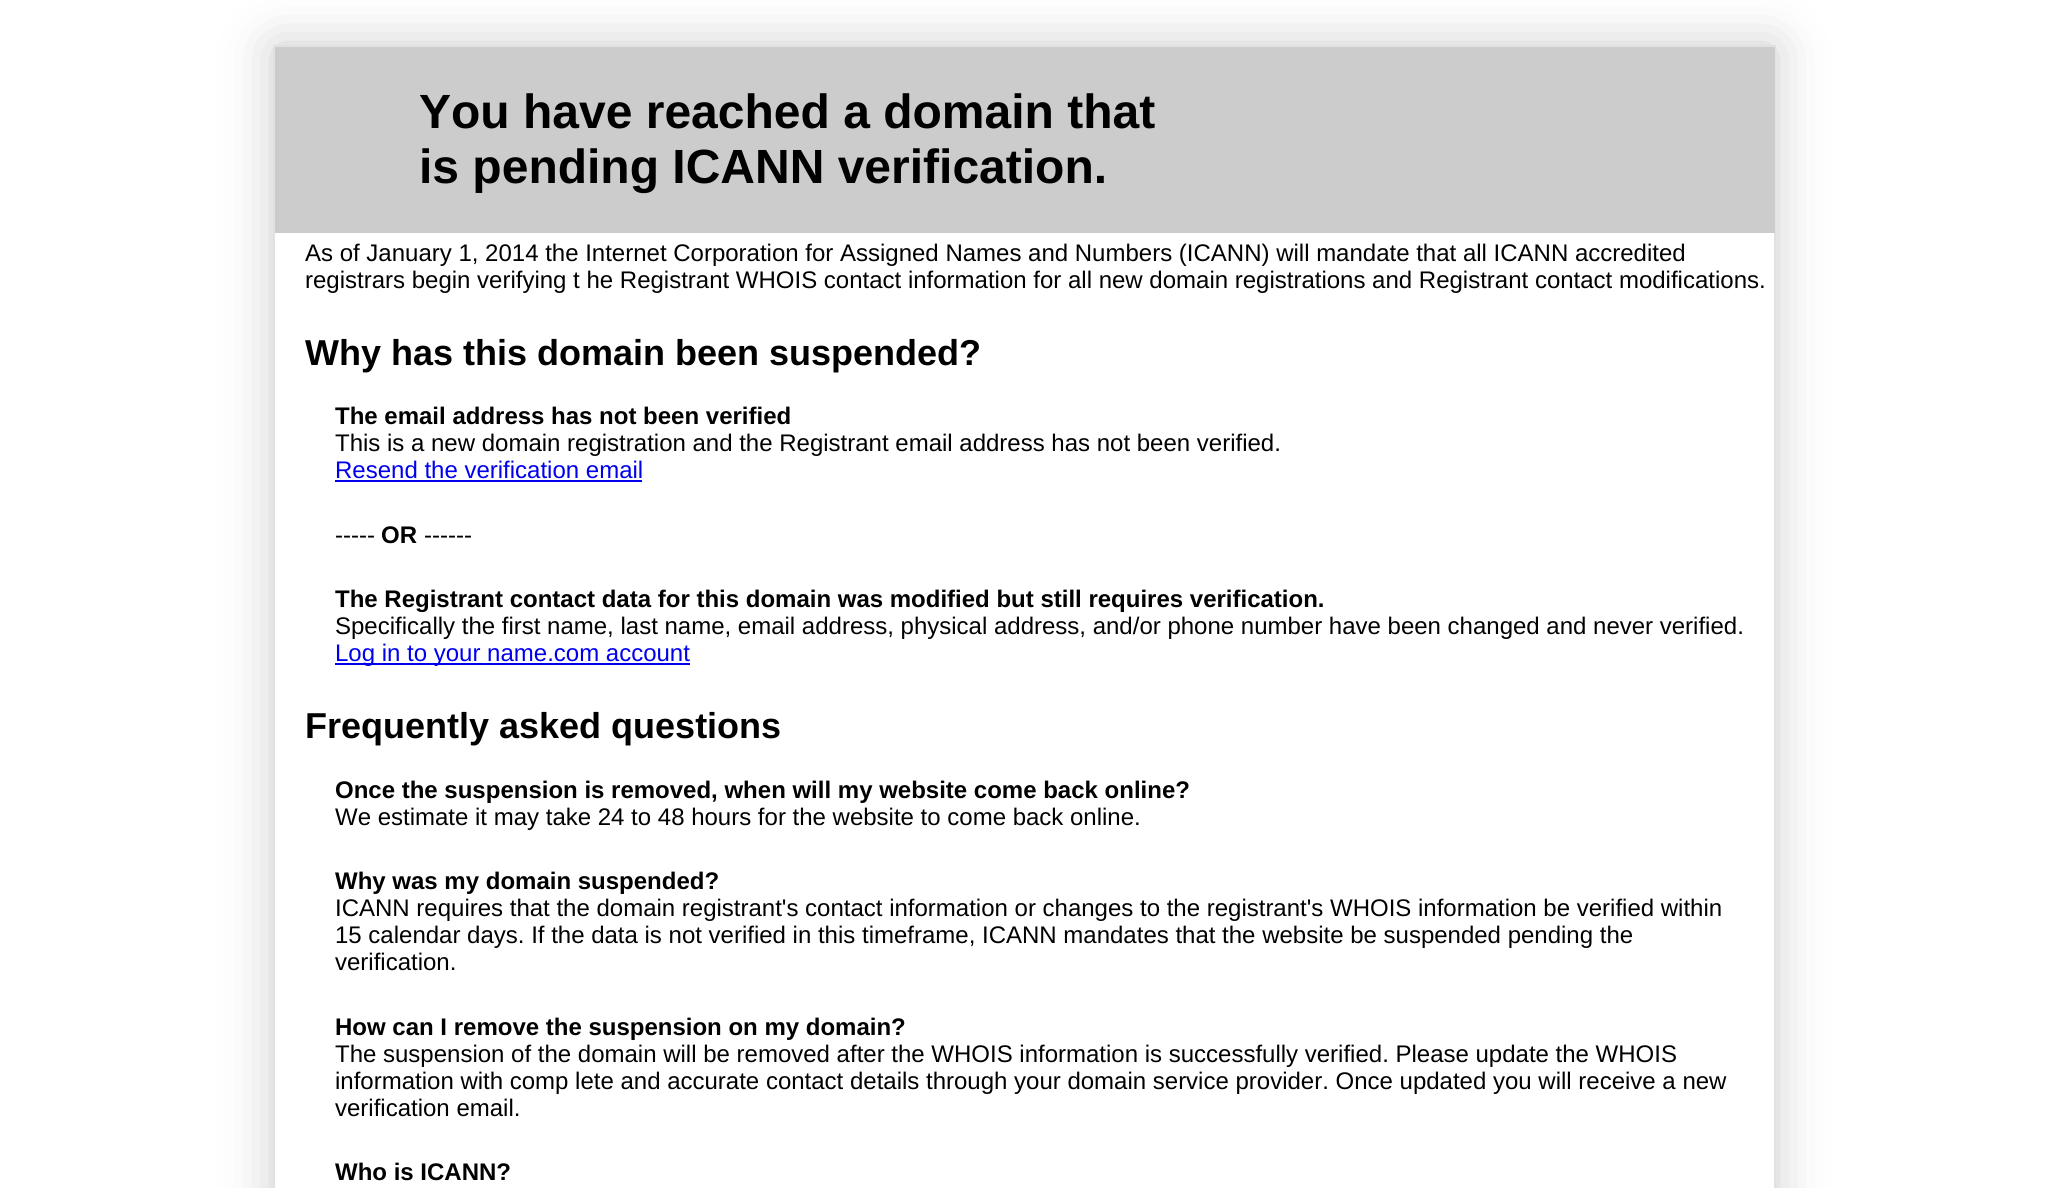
#include <cairo.h>
#include <math.h>
#include <stddef.h>

typedef struct { const char *family; double size; int italic, bold; unsigned color; } style_t;
static cairo_t *ctx;

static void ink(unsigned color) {
    cairo_set_source_rgb(ctx, (color >> 16) / 255.0, (color >> 8 & 255) / 255.0, (color & 255) / 255.0);
}

static void write(double x, double y, const char *s, const style_t *st) {
    cairo_select_font_face(ctx, st->family, st->italic ? CAIRO_FONT_SLANT_ITALIC : CAIRO_FONT_SLANT_NORMAL,
        st->bold ? CAIRO_FONT_WEIGHT_BOLD : CAIRO_FONT_WEIGHT_NORMAL);
    cairo_set_font_size(ctx, st->size);
    ink(st->color);
    cairo_move_to(ctx, x, y);
    cairo_show_text(ctx, s);
}

static void block(double x, double y, double w, double h, unsigned color) {
    ink(color);
    cairo_rectangle(ctx, x, y, w, h);
    cairo_fill(ctx);
}

static void round_path(double x, double y, double w, double h, double r) {
    cairo_new_sub_path(ctx);
    cairo_arc(ctx, x + w - r, y + h - r, r, 0, M_PI / 2);
    cairo_arc(ctx, x + r, y + h - r, r, M_PI / 2, M_PI);
    cairo_arc(ctx, x + r, y + r, r, M_PI, 1.5 * M_PI);
    cairo_arc(ctx, x + w - r, y + r, r, 1.5 * M_PI, 2 * M_PI);
    cairo_close_path(ctx);
}

static void blur_box(double x, double y, double w, double h, double r, double blur, double alpha) {
    cairo_push_group_with_content(ctx, CAIRO_CONTENT_ALPHA);
    cairo_set_operator(ctx, CAIRO_OPERATOR_SOURCE);
    for (int i = 15; i >= -15 && fmin(w, h) + blur * i / 3 > 0; i -= 2) {
        double e = blur * i / 6;
        cairo_set_source_rgba(ctx, 0, 0, 0, alpha * erfc((i - 1) / 8.5) / 2);
        round_path(x - e, y - e, w + 2 * e, h + 2 * e, fmax(0, fmin(r + e + blur * .6, fmin(w, h) / 2 + e)));
        cairo_fill(ctx);
    }
    cairo_pattern_t *soft = cairo_pop_group(ctx);
    cairo_mask(ctx, soft);
    cairo_pattern_destroy(soft);
}

static const style_t s1 = {"Liberation Sans", 48, 0, 1, 0x000000};
static const style_t s2 = {"Liberation Sans", 24, 0, 0, 0x000000};
static const style_t s3 = {"Liberation Sans", 36, 0, 1, 0x000000};
static const style_t s4 = {"Liberation Sans", 24, 0, 1, 0x000000};
static const style_t s5 = {"Liberation Sans", 24, 0, 0, 0x0000ee};

int main(void) {
    cairo_surface_t *surface = cairo_image_surface_create(CAIRO_FORMAT_RGB24, 2049, 1188);
    ctx = cairo_create(surface);
    cairo_font_options_t *options = cairo_font_options_create();
    cairo_font_options_set_hint_metrics(options, CAIRO_HINT_METRICS_OFF);
    cairo_font_options_set_hint_style(options, CAIRO_HINT_STYLE_NONE);
    cairo_set_font_options(ctx, options);
    cairo_set_miter_limit(ctx, 4);
    ink(0xffffff);
    cairo_paint(ctx);
    cairo_save(ctx);
    cairo_set_fill_rule(ctx, CAIRO_FILL_RULE_EVEN_ODD);
    cairo_new_path(ctx);
    cairo_move_to(ctx, 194, 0);
    cairo_line_to(ctx, 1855, 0);
    cairo_line_to(ctx, 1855, 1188);
    cairo_line_to(ctx, 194, 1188);
    cairo_close_path(ctx);
    cairo_move_to(ctx, 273, 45);
    cairo_line_to(ctx, 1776, 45);
    cairo_line_to(ctx, 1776, 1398);
    cairo_line_to(ctx, 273, 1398);
    cairo_close_path(ctx);
    cairo_clip(ctx);
    ink(0x323232);
    blur_box(273, 45, 1503, 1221, 0, 26, 0.25);
    cairo_restore(ctx);
    cairo_rectangle(ctx, 274, 46, 1501, 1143);
    ink(0xe1e1e1);
    cairo_stroke(ctx);
    block(275, 47, 1500, 186, 0xcccccc);
    write(419, 128, "You have reached a domain that", &s1);
    write(419, 183, "is pending ICANN verification.", &s1);
    write(305, 261, "As of January 1, 2014 the Internet Corporation for Assigned Names and Numbers (ICANN) will mandate that all ICANN accredited", &s2);
    write(305, 288, "registrars begin verifying t he Registrant WHOIS contact information for all new domain registrations and Registrant contact modifications.", &s2);
    write(305, 365, "Why has this domain been suspended?", &s3);
    write(335, 424, "The email address has not been verified", &s4);
    write(335, 451, "This is a new domain registration and the Registrant email address has not been verified.", &s2);
    write(335, 478, "Resend the verification email", &s5);
    block(335, 480, 307, 2, 0x0000ee);
    write(335, 543, "-----", &s2);
    write(381, 543, "OR", &s4);
    write(424, 543, "------", &s2);
    write(335, 607, "The Registrant contact data for this domain was modified but still requires verification.", &s4);
    write(335, 634, "Specifically the first name, last name, email address, physical address, and/or phone number have been changed and never verified.", &s2);
    block(335, 663, 355, 2, 0x0000ee);
    write(335, 661, "Log in to your name.com account", &s5);
    write(305, 738, "Frequently asked questions", &s3);
    write(335, 798, "Once the suspension is removed, when will my website come back online?", &s4);
    write(335, 825, "We estimate it may take 24 to 48 hours for the website to come back online.", &s2);
    write(335, 889, "Why was my domain suspended?", &s4);
    write(335, 916, "ICANN requires that the domain registrant's contact information or changes to the registrant's WHOIS information be verified within", &s2);
    write(335, 943, "15 calendar days. If the data is not verified in this timeframe, ICANN mandates that the website be suspended pending the", &s2);
    write(335, 970, "verification.", &s2);
    write(335, 1035, "How can I remove the suspension on my domain?", &s4);
    write(335, 1062, "The suspension of the domain will be removed after the WHOIS information is successfully verified. Please update the WHOIS", &s2);
    write(335, 1089, "information with comp lete and accurate contact details through your domain service provider. Once updated you will receive a new", &s2);
    write(335, 1116, "verification email.", &s2);
    write(335, 1180, "Who is ICANN?", &s4);
    cairo_surface_write_to_png(surface, "screenshot.png");
    cairo_font_options_destroy(options);
    cairo_destroy(ctx);
    cairo_surface_destroy(surface);
    return 0;
}
